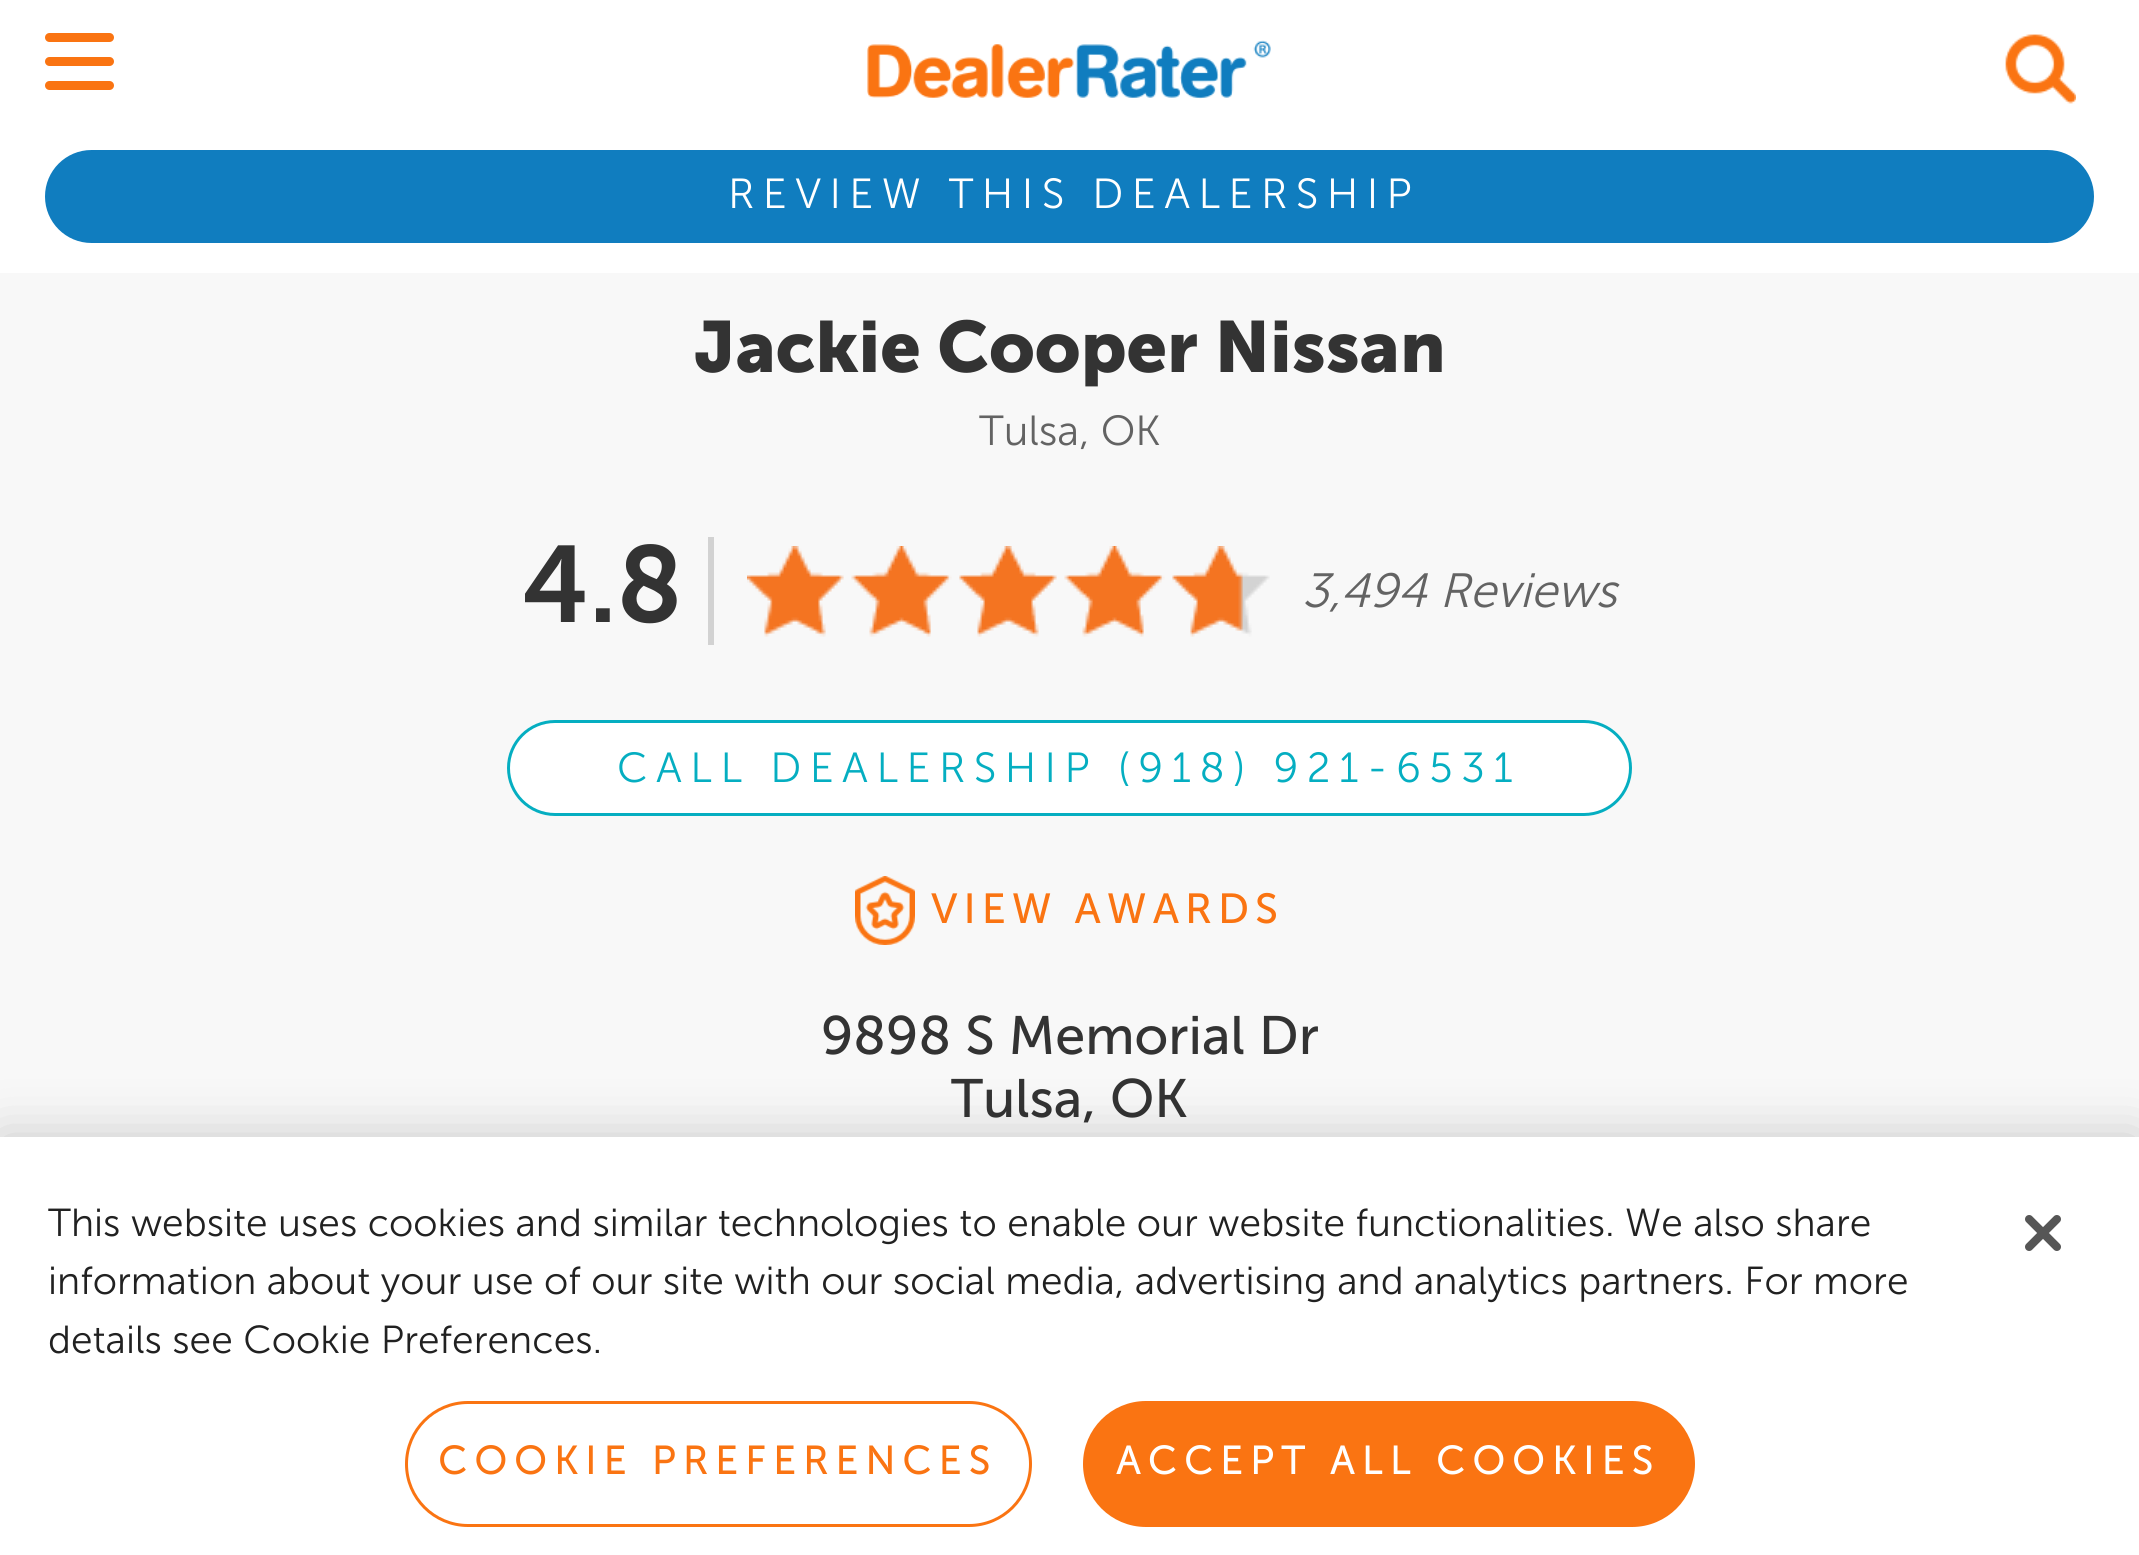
#include <cairo.h>
#include <math.h>
#include <stddef.h>

typedef struct { const char *family; double size; int italic, bold; unsigned color; } style_t;
static cairo_t *ctx;

static void ink(unsigned color) {
    cairo_set_source_rgb(ctx, (color >> 16) / 255.0, (color >> 8 & 255) / 255.0, (color & 255) / 255.0);
}

static void write(double x, double y, const char *s, const style_t *st) {
    cairo_select_font_face(ctx, st->family, st->italic ? CAIRO_FONT_SLANT_ITALIC : CAIRO_FONT_SLANT_NORMAL,
        st->bold ? CAIRO_FONT_WEIGHT_BOLD : CAIRO_FONT_WEIGHT_NORMAL);
    cairo_set_font_size(ctx, st->size);
    ink(st->color);
    cairo_move_to(ctx, x, y);
    cairo_show_text(ctx, s);
}

static void write_spaced(double x, double y, const char *s, double letter, double word) {
    cairo_move_to(ctx, x, y);
    while (*s) {
        char ch[5] = {0};
        int n = 0;
        do ch[n++] = *s++; while ((*s & 0xC0) == 0x80);
        cairo_show_text(ctx, ch);
        cairo_rel_move_to(ctx, letter + word * (*ch == ' '), 0);
    }
}

static void block(double x, double y, double w, double h, unsigned color) {
    ink(color);
    cairo_rectangle(ctx, x, y, w, h);
    cairo_fill(ctx);
}

static void round_path(double x, double y, double w, double h, double r) {
    cairo_new_sub_path(ctx);
    cairo_arc(ctx, x + w - r, y + h - r, r, 0, M_PI / 2);
    cairo_arc(ctx, x + r, y + h - r, r, M_PI / 2, M_PI);
    cairo_arc(ctx, x + r, y + r, r, M_PI, 1.5 * M_PI);
    cairo_arc(ctx, x + w - r, y + r, r, 1.5 * M_PI, 2 * M_PI);
    cairo_close_path(ctx);
}

static void blur_box(double x, double y, double w, double h, double r, double blur, double alpha) {
    cairo_push_group_with_content(ctx, CAIRO_CONTENT_ALPHA);
    cairo_set_operator(ctx, CAIRO_OPERATOR_SOURCE);
    for (int i = 15; i >= -15 && fmin(w, h) + blur * i / 3 > 0; i -= 2) {
        double e = blur * i / 6;
        cairo_set_source_rgba(ctx, 0, 0, 0, alpha * erfc((i - 1) / 8.5) / 2);
        round_path(x - e, y - e, w + 2 * e, h + 2 * e, fmax(0, fmin(r + e + blur * .6, fmin(w, h) / 2 + e)));
        cairo_fill(ctx);
    }
    cairo_pattern_t *soft = cairo_pop_group(ctx);
    cairo_mask(ctx, soft);
    cairo_pattern_destroy(soft);
}

static void paste(const char *path, double x, double y, double w, double h) {
    cairo_surface_t *image = cairo_image_surface_create_from_png(path);
    cairo_save(ctx);
    cairo_set_source_surface(ctx, image, x, y);
    cairo_rectangle(ctx, x, y, w, h);
    cairo_fill(ctx);
    cairo_restore(ctx);
    cairo_surface_destroy(image);
}

static const style_t s1 = {"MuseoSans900", 72, 0, 0, 0x333333};
static const style_t s2 = {"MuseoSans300", 42, 0, 0, 0x636363};
static const style_t s3 = {"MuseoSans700", 108, 0, 0, 0x333333};
static const style_t s4 = {"MuseoSans300", 48, 1, 0, 0x636363};
static const style_t s5 = {"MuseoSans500", 54, 0, 0, 0x333333};
static const style_t s6 = {"MuseoSans300", 39, 0, 0, 0x212121};

int main(void) {
    cairo_surface_t *surface = cairo_image_surface_create(CAIRO_FORMAT_RGB24, 2139, 1555);
    ctx = cairo_create(surface);
    cairo_font_options_t *options = cairo_font_options_create();
    cairo_font_options_set_hint_metrics(options, CAIRO_HINT_METRICS_OFF);
    cairo_font_options_set_hint_style(options, CAIRO_HINT_STYLE_NONE);
    cairo_set_font_options(ctx, options);
    cairo_set_miter_limit(ctx, 4);
    ink(0xffffff);
    cairo_paint(ctx);
    ink(0xfa7412);
    round_path(45, 33, 69, 9, 4.5);
    cairo_fill(ctx);
    round_path(45, 57, 69, 9, 4.5);
    cairo_fill(ctx);
    round_path(45, 81, 69, 9, 4.5);
    cairo_fill(ctx);
    paste("pic1.png", 867, 40, 404, 59);
    paste("pic2.png", 2005, 34, 71, 70);
    ink(0x107dbf);
    round_path(45, 150, 2049, 93, 46.5);
    cairo_fill(ctx);
    cairo_select_font_face(ctx, "MuseoSans300", CAIRO_FONT_SLANT_NORMAL, CAIRO_FONT_WEIGHT_NORMAL);
    cairo_set_font_size(ctx, 42);
    ink(0xffffff);
    write_spaced(728, 208, "REVIEW THIS DEALERSHIP", 8.4, 0);
    block(0, 273, 2139, 864, 0xf8f8f8);
    write(694, 372, "Jackie Cooper Nissan", &s1);
    write(979, 445, "Tulsa, OK", &s2);
    write(522, 622, "4.8", &s3);
    block(708, 537, 6, 108, 0xd2d2d2);
    paste("pic3.png", 747, 546, 523, 91);
    write(1302, 607, "3,494 Reviews", &s4);
    ink(0xffffff);
    round_path(508.5, 721.5, 1122, 93, 46.5);
    cairo_fill_preserve(ctx);
    ink(0x05aec1);
    cairo_set_line_width(ctx, 3);
    cairo_stroke(ctx);
    cairo_select_font_face(ctx, "MuseoSans300", CAIRO_FONT_SLANT_NORMAL, CAIRO_FONT_WEIGHT_NORMAL);
    cairo_set_font_size(ctx, 42);
    write_spaced(617, 782, "CALL DEALERSHIP (918) 921-6531", 8.4, 0);
    paste("pic4.png", 855, 876, 60, 69);
    cairo_select_font_face(ctx, "MuseoSans500", CAIRO_FONT_SLANT_NORMAL, CAIRO_FONT_WEIGHT_NORMAL);
    ink(0xfa7412);
    write_spaced(931, 923, "VIEW AWARDS", 6, 0);
    write(821, 1054, "9898 S Memorial Dr", &s5);
    write(951, 1117, "Tulsa, OK", &s5);
    ink(0x000000);
    blur_box(0, 1137, 2139, 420, 0, 27, 0.2);
    block(0, 1137, 2139, 418, 0xffffff);
    write(48, 1236, "This website uses cookies and similar technologies to enable our website functionalities. We also share", &s6);
    write(48, 1294, "information about your use of our site with our social media, advertising and analytics partners. For more", &s6);
    write(48, 1353, "details see Cookie Preferences.", &s6);
    round_path(406.5, 1402.5, 624, 123, 61.5);
    ink(0xfa7412);
    cairo_stroke(ctx);
    cairo_select_font_face(ctx, "MuseoSans300", CAIRO_FONT_SLANT_NORMAL, CAIRO_FONT_WEIGHT_BOLD);
    write_spaced(438, 1474, "COOKIE PREFERENCES", 7.75, 0);
    round_path(1084.5, 1402.5, 609, 123, 61.5);
    cairo_fill_preserve(ctx);
    cairo_stroke(ctx);
    ink(0xffffff);
    write_spaced(1116, 1474, "ACCEPT ALL COOKIES", 7.75, 0);
    paste("pic5.png", 2025, 1215, 36, 36);
    cairo_surface_write_to_png(surface, "screenshot.png");
    cairo_font_options_destroy(options);
    cairo_destroy(ctx);
    cairo_surface_destroy(surface);
    return 0;
}
